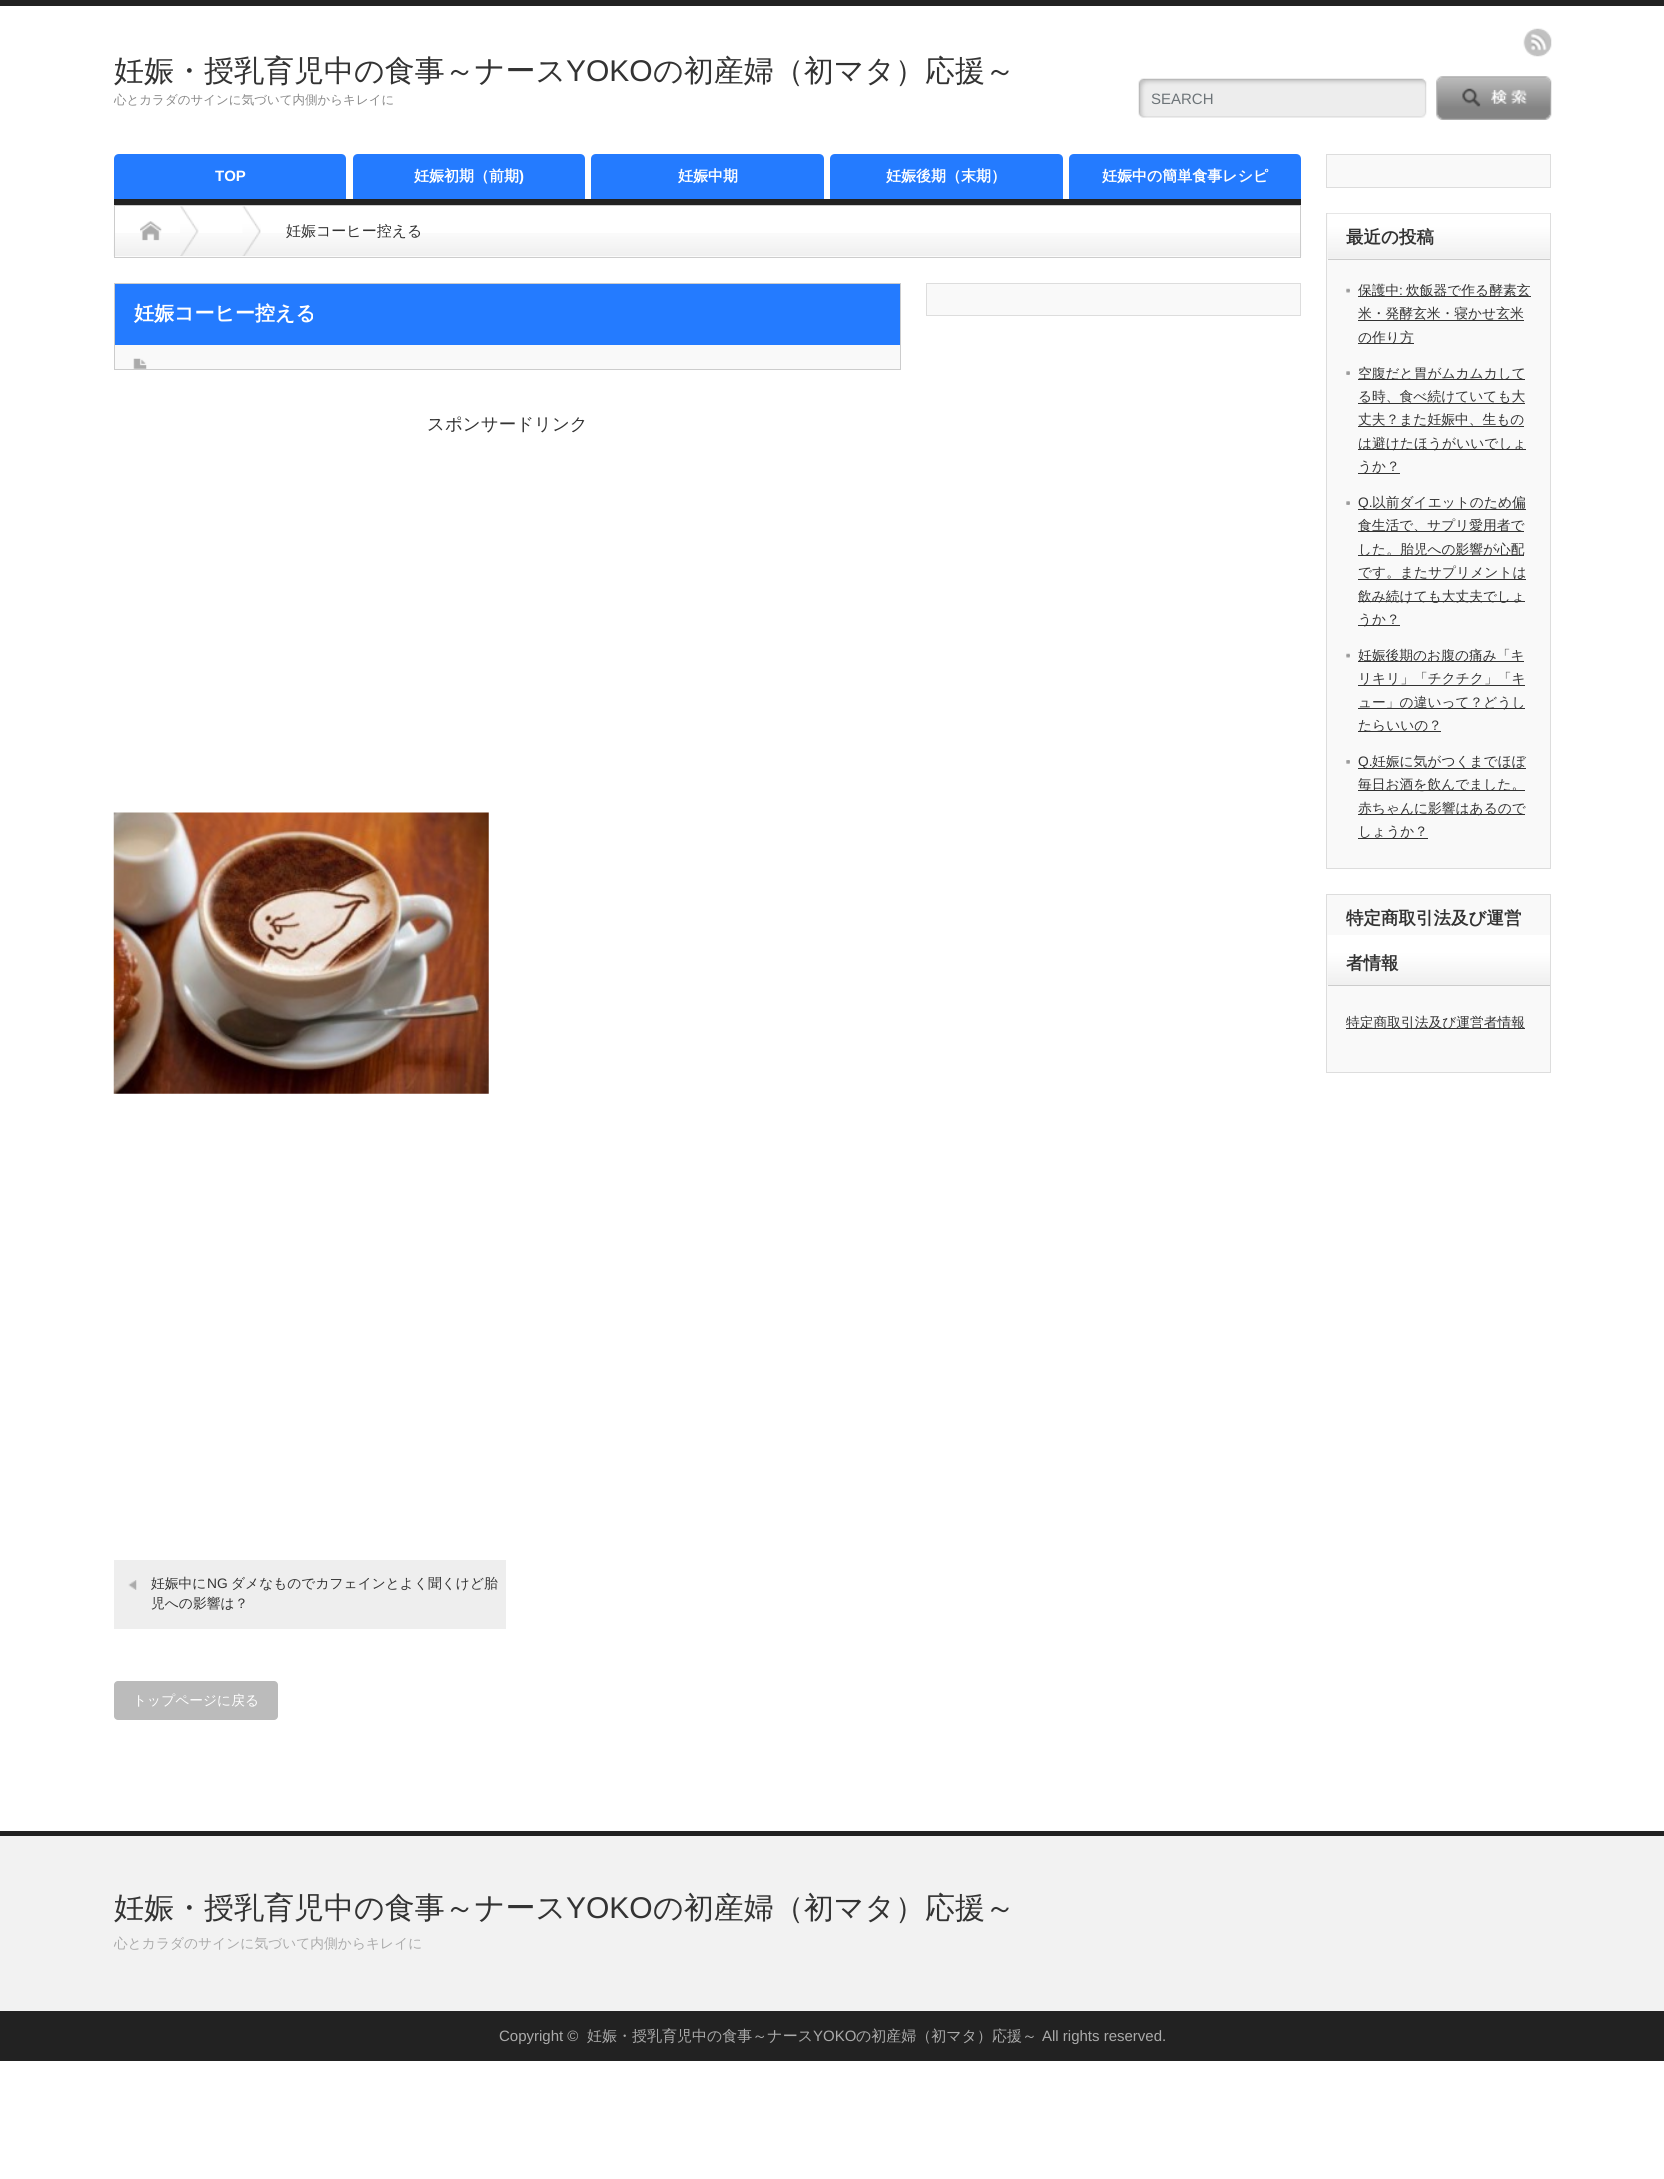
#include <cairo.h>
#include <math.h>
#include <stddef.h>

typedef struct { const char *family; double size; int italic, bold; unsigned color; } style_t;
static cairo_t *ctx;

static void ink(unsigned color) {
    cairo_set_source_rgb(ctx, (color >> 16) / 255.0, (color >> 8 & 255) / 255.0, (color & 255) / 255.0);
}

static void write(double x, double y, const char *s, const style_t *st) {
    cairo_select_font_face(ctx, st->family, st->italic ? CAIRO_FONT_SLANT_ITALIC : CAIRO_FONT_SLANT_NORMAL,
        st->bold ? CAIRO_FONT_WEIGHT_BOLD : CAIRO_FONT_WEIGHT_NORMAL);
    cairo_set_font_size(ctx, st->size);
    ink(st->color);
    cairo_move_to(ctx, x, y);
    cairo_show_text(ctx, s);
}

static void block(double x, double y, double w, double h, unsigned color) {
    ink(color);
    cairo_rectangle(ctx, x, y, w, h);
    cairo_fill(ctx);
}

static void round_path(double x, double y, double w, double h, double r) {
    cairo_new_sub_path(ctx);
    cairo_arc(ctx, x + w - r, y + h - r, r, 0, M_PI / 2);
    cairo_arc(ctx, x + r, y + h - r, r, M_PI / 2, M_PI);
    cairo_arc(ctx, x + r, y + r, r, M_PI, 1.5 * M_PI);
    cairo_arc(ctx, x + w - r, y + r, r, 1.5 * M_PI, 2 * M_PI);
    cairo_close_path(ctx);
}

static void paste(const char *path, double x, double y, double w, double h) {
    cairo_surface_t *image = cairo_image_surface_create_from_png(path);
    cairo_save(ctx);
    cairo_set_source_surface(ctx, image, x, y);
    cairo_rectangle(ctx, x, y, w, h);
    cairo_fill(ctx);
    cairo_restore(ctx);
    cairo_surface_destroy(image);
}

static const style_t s1 = {"WenQuanYi Zen Hei Medium", 30, 0, 0, 0x333333};
static const style_t s2 = {"Liberation Sans", 30, 0, 0, 0x333333};
static const style_t s3 = {"WenQuanYi Zen Hei Medium", 12.5, 0, 0, 0x888888};
static const style_t s4 = {"Liberation Sans", 15, 0, 0, 0x6d7478};
static const style_t s5 = {"Liberation Sans", 15, 0, 1, 0xffffff};
static const style_t s6 = {"WenQuanYi Zen Hei", 15, 0, 1, 0xffffff};
static const style_t s7 = {"WenQuanYi Zen Hei Medium", 15, 0, 0, 0x333333};
static const style_t s8 = {"WenQuanYi Zen Hei", 20, 0, 1, 0xffffff};
static const style_t s9 = {"WenQuanYi Zen Hei Medium", 17.5, 0, 0, 0x333333};
static const style_t s10 = {"WenQuanYi Zen Hei Medium", 13.75, 0, 0, 0x333333};
static const style_t s11 = {"Liberation Sans", 13.75, 0, 0, 0x333333};
static const style_t s12 = {"WenQuanYi Zen Hei Medium", 13.75, 0, 0, 0xffffff};
static const style_t s13 = {"WenQuanYi Zen Hei", 17.5, 0, 1, 0x333333};
static const style_t s14 = {"WenQuanYi Zen Hei Medium", 13.75, 0, 0, 0xaaaaaa};
static const style_t s15 = {"Liberation Sans", 15, 0, 0, 0xaaaaaa};
static const style_t s16 = {"WenQuanYi Zen Hei Medium", 15, 0, 0, 0xaaaaaa};

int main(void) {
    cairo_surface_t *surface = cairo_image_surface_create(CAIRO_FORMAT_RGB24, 1664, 2179);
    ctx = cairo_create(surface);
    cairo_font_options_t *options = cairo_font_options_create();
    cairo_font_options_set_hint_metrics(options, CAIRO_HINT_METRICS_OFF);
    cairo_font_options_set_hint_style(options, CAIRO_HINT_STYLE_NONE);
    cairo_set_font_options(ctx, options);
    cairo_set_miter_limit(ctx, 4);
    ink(0xffffff);
    cairo_paint(ctx);
    block(0, 0, 1664, 6, 0x222222);
    paste("pic1.png", 1523, 28, 29, 29);
    write(114, 81, "妊娠・授乳育児中の食事～ナース", &s1);
    write(566, 81, "YOKO", &s2);
    write(653, 81, "の初産婦（初マタ）応援～", &s1);
    write(114, 104, "心とカラダのサインに気づいて内側からキレイに", &s3);
    paste("pic2.png", 1138, 78, 289, 40);
    write(1151, 104, "SEARCH", &s4);
    paste("pic3.png", 1436, 76, 116, 44);
    block(114, 199, 1187, 6, 0x222222);
    ink(0x247bff);
    cairo_new_path(ctx);
    cairo_move_to(ctx, 119, 154);
    cairo_line_to(ctx, 341, 154);
    cairo_curve_to(ctx, 344, 154, 346, 156, 346, 159);
    cairo_line_to(ctx, 346, 199);
    cairo_line_to(ctx, 114, 199);
    cairo_line_to(ctx, 114, 159);
    cairo_curve_to(ctx, 114, 156, 116, 154, 119, 154);
    cairo_close_path(ctx);
    cairo_fill(ctx);
    write(215, 181, "TOP", &s5);
    ink(0x247bff);
    cairo_new_path(ctx);
    cairo_move_to(ctx, 358, 154);
    cairo_line_to(ctx, 580, 154);
    cairo_curve_to(ctx, 583, 154, 585, 156, 585, 159);
    cairo_line_to(ctx, 585, 199);
    cairo_line_to(ctx, 353, 199);
    cairo_line_to(ctx, 353, 159);
    cairo_curve_to(ctx, 353, 156, 355, 154, 358, 154);
    cairo_close_path(ctx);
    cairo_fill(ctx);
    write(414, 181, "妊娠初期（前期", &s6);
    write(519, 181, ")", &s5);
    ink(0x247bff);
    cairo_new_path(ctx);
    cairo_move_to(ctx, 596, 154);
    cairo_line_to(ctx, 819, 154);
    cairo_curve_to(ctx, 822, 154, 824, 156, 824, 159);
    cairo_line_to(ctx, 824, 199);
    cairo_line_to(ctx, 591, 199);
    cairo_line_to(ctx, 591, 159);
    cairo_curve_to(ctx, 591, 156, 593, 154, 596, 154);
    cairo_close_path(ctx);
    cairo_fill(ctx);
    write(678, 181, "妊娠中期", &s6);
    ink(0x247bff);
    cairo_new_path(ctx);
    cairo_move_to(ctx, 835, 154);
    cairo_line_to(ctx, 1058, 154);
    cairo_curve_to(ctx, 1061, 154, 1063, 156, 1063, 159);
    cairo_line_to(ctx, 1063, 199);
    cairo_line_to(ctx, 830, 199);
    cairo_line_to(ctx, 830, 159);
    cairo_curve_to(ctx, 830, 156, 832, 154, 835, 154);
    cairo_close_path(ctx);
    cairo_fill(ctx);
    write(886, 181, "妊娠後期（末期）", &s6);
    ink(0x247bff);
    cairo_new_path(ctx);
    cairo_move_to(ctx, 1074, 154);
    cairo_line_to(ctx, 1296, 154);
    cairo_curve_to(ctx, 1299, 154, 1301, 156, 1301, 159);
    cairo_line_to(ctx, 1301, 199);
    cairo_line_to(ctx, 1069, 199);
    cairo_line_to(ctx, 1069, 159);
    cairo_curve_to(ctx, 1069, 156, 1071, 154, 1074, 154);
    cairo_close_path(ctx);
    cairo_fill(ctx);
    write(1102, 181, "妊娠中の簡単食事レシピ", &s6);
    paste("pic4.png", 113, 233, 1189, 24);
    cairo_rectangle(ctx, 114.5, 205.5, 1186, 52);
    ink(0xcccccc);
    cairo_set_line_width(ctx, 1);
    cairo_stroke(ctx);
    paste("pic5.png", 180, 206, 19, 50);
    paste("pic6.png", 140, 221, 22, 20);
    paste("pic7.png", 242, 206, 19, 50);
    write(286, 236, "妊娠コーヒー控える", &s7);
    ink(0xf9f9f9);
    cairo_rectangle(ctx, 926.5, 283.5, 374, 32);
    cairo_fill_preserve(ctx);
    ink(0xdddddd);
    cairo_stroke(ctx);
    cairo_rectangle(ctx, 114.5, 283.5, 786, 86);
    ink(0xcccccc);
    cairo_stroke(ctx);
    block(115, 284, 785, 61, 0x247bff);
    write(134, 320, "妊娠コーヒー控える", &s8);
    block(115, 345, 785, 24, 0xf9f9f9);
    paste("pic8.png", 133, 358, 14, 11);
    write(427, 430, "スポンサードリンク", &s9);
    paste("pic9.png", 113, 812, 376, 282);
    block(114, 1560, 392, 69, 0xeeeeee);
    paste("pic10.png", 128, 1580, 9, 10);
    write(151, 1588, "妊娠中に", &s10);
    write(207, 1588, "NG", &s11);
    write(231, 1588, "ダメなものでカフェインとよく聞くけど胎", &s10);
    write(151, 1608, "児への影響は？", &s10);
    ink(0xbbbbbb);
    round_path(114, 1681, 164, 39, 4);
    cairo_fill(ctx);
    write(133, 1705, "トップページに戻る", &s12);
    ink(0xf9f9f9);
    cairo_rectangle(ctx, 1326.5, 154.5, 224, 33);
    cairo_fill_preserve(ctx);
    ink(0xdddddd);
    cairo_stroke(ctx);
    ink(0xf9f9f9);
    cairo_rectangle(ctx, 1326.5, 213.5, 224, 655);
    cairo_fill_preserve(ctx);
    ink(0xdddddd);
    cairo_stroke(ctx);
    paste("pic11.png", 1327, 213, 223, 46);
    block(1328, 259, 222, 1, 0xcccccc);
    write(1346, 243, "最近の投稿", &s13);
    paste("pic12.png", 1346, 288, 4, 5);
    block(1358, 296, 173, 1, 0x333333);
    write(1358, 295, "保護中", &s10);
    write(1399, 295, ":", &s11);
    write(1406, 295, "炊飯器で作る酵素玄", &s10);
    write(1358, 318, "米・発酵玄米・寝かせ玄米", &s10);
    block(1358, 320, 166, 1, 0x333333);
    block(1358, 343, 56, 1, 0x333333);
    write(1358, 342, "の作り方", &s10);
    paste("pic13.png", 1346, 371, 4, 4);
    block(1358, 379, 167, 1, 0x333333);
    write(1358, 378, "空腹だと胃がムカムカして", &s10);
    block(1358, 403, 167, 1, 0x333333);
    write(1358, 401, "る時、食べ続けていても大", &s10);
    write(1358, 424, "丈夫？また妊娠中、生もの", &s10);
    block(1358, 426, 166, 1, 0x333333);
    block(1358, 449, 168, 1, 0x333333);
    write(1358, 448, "は避けたほうがいいでしょ", &s10);
    block(1358, 473, 42, 1, 0x333333);
    write(1358, 471, "うか？", &s10);
    paste("pic13.png", 1346, 501, 4, 4);
    block(1358, 509, 168, 1, 0x333333);
    write(1358, 507, "Q.", &s11);
    write(1372, 507, "以前ダイエットのため偏", &s10);
    block(1358, 531, 166, 1, 0x333333);
    write(1358, 530, "食生活で、サプリ愛用者で", &s10);
    block(1358, 555, 166, 1, 0x333333);
    write(1358, 554, "した。胎児への影響が心配", &s10);
    block(1358, 579, 168, 1, 0x333333);
    write(1358, 577, "です。またサプリメントは", &s10);
    block(1358, 601, 167, 1, 0x333333);
    write(1358, 601, "飲み続けても大丈夫でしょ", &s10);
    block(1358, 625, 42, 1, 0x333333);
    write(1358, 624, "うか？", &s10);
    paste("pic12.png", 1346, 653, 4, 5);
    block(1358, 661, 166, 1, 0x333333);
    write(1358, 660, "妊娠後期のお腹の痛み「キ", &s10);
    write(1358, 683, "リキリ」「チクチク」「キ", &s10);
    block(1358, 685, 167, 1, 0x333333);
    block(1358, 708, 167, 1, 0x333333);
    write(1358, 707, "ュー」の違いって？どうし", &s10);
    block(1358, 731, 83, 1, 0x333333);
    write(1358, 730, "たらいいの？", &s10);
    paste("pic14.png", 1346, 760, 4, 4);
    block(1358, 768, 168, 1, 0x333333);
    write(1358, 766, "Q.", &s11);
    write(1372, 766, "妊娠に気がつくまでほぼ", &s10);
    block(1358, 790, 167, 1, 0x333333);
    write(1358, 789, "毎日お酒を飲んでました。", &s10);
    block(1358, 814, 167, 1, 0x333333);
    write(1358, 813, "赤ちゃんに影響はあるので", &s10);
    block(1358, 838, 70, 1, 0x333333);
    write(1358, 836, "しょうか？", &s10);
    ink(0xf9f9f9);
    cairo_rectangle(ctx, 1326.5, 894.5, 224, 178);
    cairo_fill_preserve(ctx);
    ink(0xdddddd);
    cairo_stroke(ctx);
    paste("pic15.png", 1327, 935, 223, 50);
    block(1328, 985, 222, 1, 0xcccccc);
    write(1346, 924, "特定商取引法及び運営", &s13);
    write(1346, 969, "者情報", &s13);
    block(1346, 1028, 179, 1, 0x333333);
    write(1346, 1027, "特定商取引法及び運営者情報", &s10);
    block(0, 1836, 1664, 175, 0xf2f2f2);
    block(0, 1831, 1664, 5, 0x222222);
    write(114, 1918, "妊娠・授乳育児中の食事～ナース", &s1);
    write(566, 1918, "YOKO", &s2);
    write(653, 1918, "の初産婦（初マタ）応援～", &s1);
    write(114, 1948, "心とカラダのサインに気づいて内側からキレイに", &s14);
    block(0, 2011, 1664, 50, 0x222222);
    write(499, 2041, "Copyright ©", &s15);
    write(587, 2041, "妊娠・授乳育児中の食事～ナース", &s16);
    write(813, 2041, "YOKO", &s15);
    write(856, 2041, "の初産婦（初マタ）応援～", &s16);
    write(1042, 2041, "All rights reserved.", &s15);
    cairo_surface_write_to_png(surface, "screenshot.png");
    cairo_font_options_destroy(options);
    cairo_destroy(ctx);
    cairo_surface_destroy(surface);
    return 0;
}
